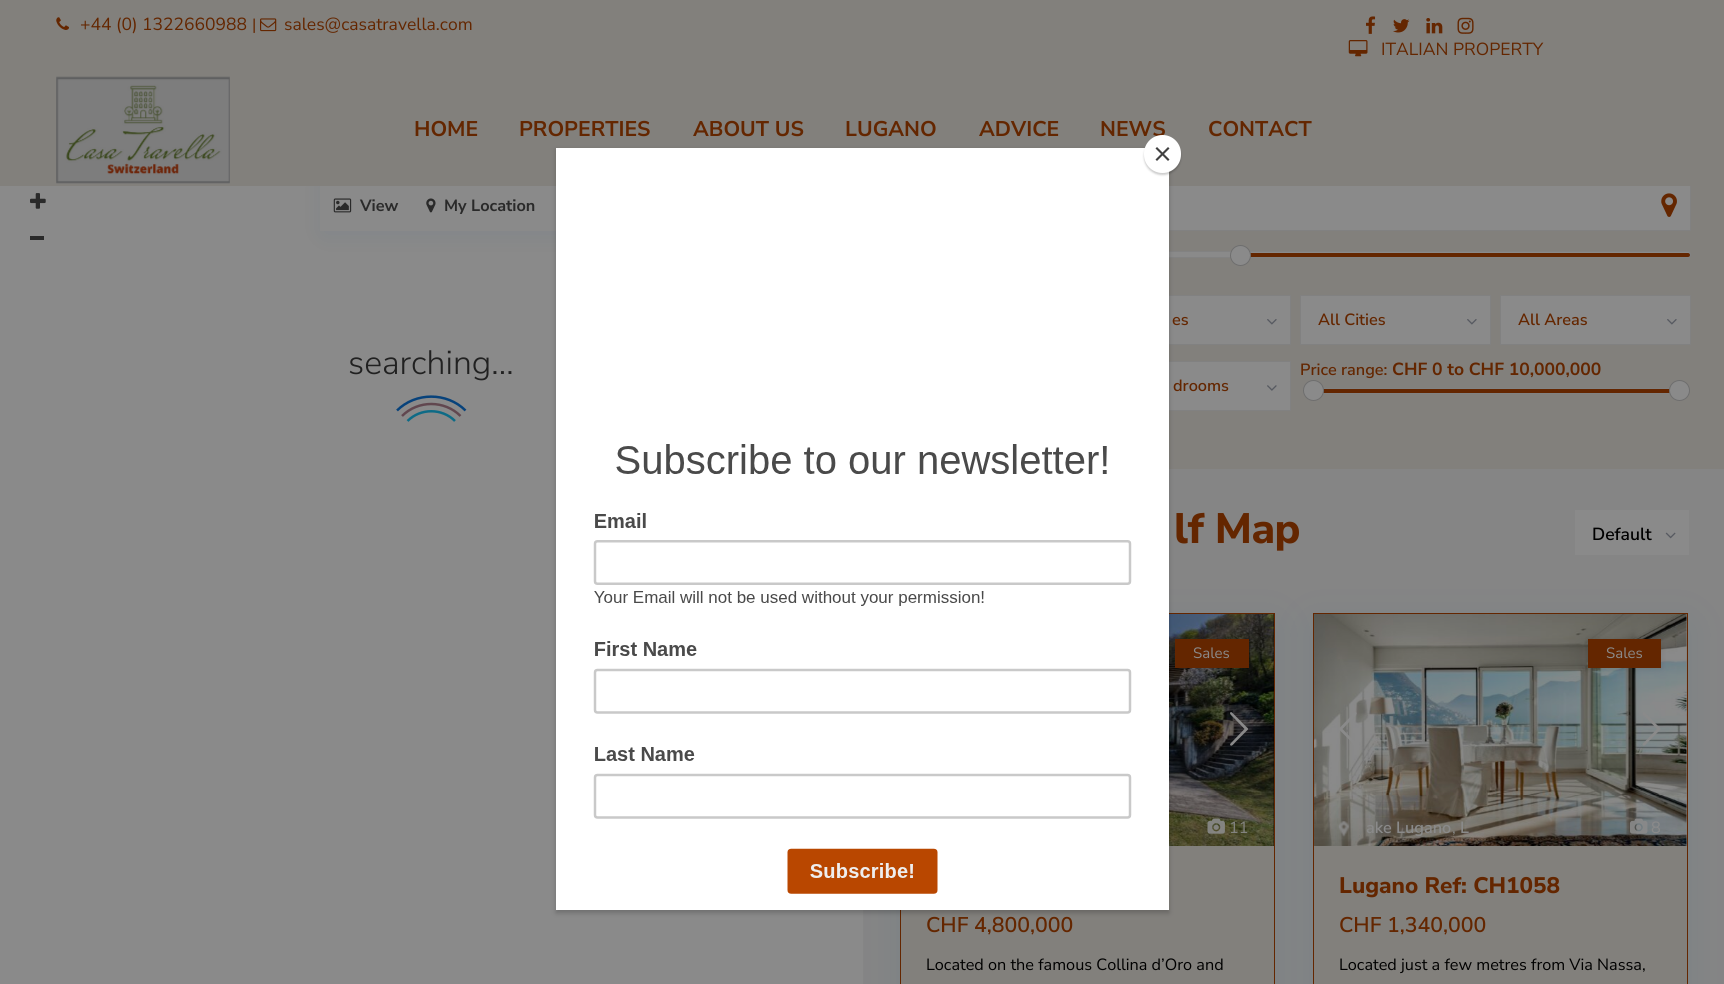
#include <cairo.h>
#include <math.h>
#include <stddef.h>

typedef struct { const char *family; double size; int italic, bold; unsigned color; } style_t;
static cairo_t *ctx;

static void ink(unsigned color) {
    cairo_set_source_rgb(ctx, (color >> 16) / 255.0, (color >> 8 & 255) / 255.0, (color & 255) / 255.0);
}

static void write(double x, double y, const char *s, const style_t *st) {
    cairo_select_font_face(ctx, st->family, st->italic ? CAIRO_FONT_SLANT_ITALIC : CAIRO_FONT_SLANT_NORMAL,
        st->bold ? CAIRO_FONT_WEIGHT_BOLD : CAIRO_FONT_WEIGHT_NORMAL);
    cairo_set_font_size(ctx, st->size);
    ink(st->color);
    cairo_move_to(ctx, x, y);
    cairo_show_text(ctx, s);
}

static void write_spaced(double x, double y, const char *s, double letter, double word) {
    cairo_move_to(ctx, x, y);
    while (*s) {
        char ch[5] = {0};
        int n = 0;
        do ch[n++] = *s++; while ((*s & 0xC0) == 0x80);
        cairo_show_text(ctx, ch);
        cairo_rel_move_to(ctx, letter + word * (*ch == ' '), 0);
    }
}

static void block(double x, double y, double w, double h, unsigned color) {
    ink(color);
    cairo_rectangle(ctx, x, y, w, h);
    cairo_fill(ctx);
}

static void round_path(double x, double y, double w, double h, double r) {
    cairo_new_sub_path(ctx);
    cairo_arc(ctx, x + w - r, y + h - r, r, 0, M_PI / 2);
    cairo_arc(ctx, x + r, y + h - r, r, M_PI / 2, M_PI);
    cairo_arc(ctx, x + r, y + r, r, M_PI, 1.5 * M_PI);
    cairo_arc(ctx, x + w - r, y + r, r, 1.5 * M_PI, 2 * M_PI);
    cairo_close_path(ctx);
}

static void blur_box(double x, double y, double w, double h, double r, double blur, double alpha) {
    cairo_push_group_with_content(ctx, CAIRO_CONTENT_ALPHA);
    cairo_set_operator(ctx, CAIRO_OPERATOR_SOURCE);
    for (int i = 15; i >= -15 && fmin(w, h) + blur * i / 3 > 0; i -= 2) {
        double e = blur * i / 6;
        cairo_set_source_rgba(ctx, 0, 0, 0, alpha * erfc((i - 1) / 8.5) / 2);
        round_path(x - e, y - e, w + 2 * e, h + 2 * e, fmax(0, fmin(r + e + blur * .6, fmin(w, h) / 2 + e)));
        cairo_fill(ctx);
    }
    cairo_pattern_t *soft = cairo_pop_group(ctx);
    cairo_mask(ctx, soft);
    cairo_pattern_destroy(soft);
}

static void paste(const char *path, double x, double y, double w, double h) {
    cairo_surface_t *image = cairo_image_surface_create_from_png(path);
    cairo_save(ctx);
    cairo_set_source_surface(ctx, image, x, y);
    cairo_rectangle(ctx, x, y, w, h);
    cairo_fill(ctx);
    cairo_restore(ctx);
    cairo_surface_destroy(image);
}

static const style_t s1 = {"Nunito Sans", 17.5, 0, 0, 0x642600};
static const style_t s2 = {"Nunito Sans", 16.25, 0, 0, 0x642600};
static const style_t s3 = {"Nunito Sans", 21.25, 0, 1, 0x642600};
static const style_t s4 = {"Nunito Sans", 16.25, 0, 1, 0x2a2a2a};
static const style_t s5 = {"Nunito Sans Light", 33.75, 0, 0, 0x212121};
static const style_t s6 = {"Nunito Sans SemiBold", 16.25, 0, 0, 0x642600};
static const style_t s7 = {"Nunito Sans", 17.5, 0, 1, 0x642600};
static const style_t s8 = {"Nunito Sans SemiBold", 17.5, 0, 0, 0x000000};
static const style_t s9 = {"Nunito Sans", 15, 0, 0, 0x8a8a8a};
static const style_t s10 = {"Nunito Sans", 16.25, 0, 0, 0x838380};
static const style_t s11 = {"Nunito Sans SemiBold", 21.25, 0, 0, 0x642600};
static const style_t s12 = {"Nunito Sans", 16.25, 0, 0, 0x000000};
static const style_t s13 = {"Nunito Sans SemiBold", 16.25, 0, 0, 0x8a8a8a};
static const style_t s14 = {"Nunito Sans", 16.25, 0, 0, 0x8a8a8a};
static const style_t s15 = {"Nunito Sans ExtraBold", 22.5, 0, 0, 0x642600};

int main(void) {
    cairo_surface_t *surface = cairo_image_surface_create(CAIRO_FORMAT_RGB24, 1724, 984);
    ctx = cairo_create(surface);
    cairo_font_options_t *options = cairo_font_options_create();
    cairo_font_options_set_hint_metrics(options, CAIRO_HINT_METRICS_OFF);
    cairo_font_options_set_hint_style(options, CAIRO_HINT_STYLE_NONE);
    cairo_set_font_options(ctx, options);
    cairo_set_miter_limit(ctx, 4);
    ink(0x8a8a8a);
    cairo_paint(ctx);
    ink(0x003b7a);
    blur_box(324, 183, 524, 50, 0, 12.5, 0.08);
    block(1169, 186, 555, 283, 0x82807c);
    block(1169, 186, 521, 44, 0x8a8a8a);
    cairo_rectangle(ctx, 900.5, 181.5, 790, 49);
    ink(0x818181);
    cairo_set_line_width(ctx, 1);
    cairo_stroke(ctx);
    block(0, 0, 1724, 186, 0x82807c);
    paste("pic1.png", 56, 17, 13, 13);
    write(80, 30, "+44 (0) 1322660988", &s1);
    write(252, 30, "|", &s2);
    paste("pic2.png", 260, 18, 17, 14);
    write(284, 30, "sales@casatravella.com", &s1);
    paste("pic3.png", 1366, 16, 10, 18);
    paste("pic4.png", 1393, 19, 17, 14);
    paste("pic5.png", 1426, 18, 17, 16);
    paste("pic6.png", 1457, 17, 17, 17);
    paste("pic7.png", 1348, 40, 20, 17);
    write(1381, 55, "ITALIAN PROPERTY", &s1);
    paste("pic8.png", 56, 76, 174, 108);
    write(414, 136, "HOME", &s3);
    write(519, 136, "PROPERTIES", &s3);
    write(693, 136, "ABOUT US", &s3);
    write(845, 136, "LUGANO", &s3);
    write(979, 136, "ADVICE", &s3);
    write(1100, 136, "NEWS", &s3);
    write(1208, 136, "CONTACT", &s3);
    paste("pic9.png", 30, 193, 16, 16);
    block(320, 186, 236, 45, 0x8a8a8a);
    paste("pic10.png", 333, 198, 19, 15);
    write(360, 211, "View", &s4);
    paste("pic11.png", 426, 198, 10, 15);
    write(444, 211, "My Location", &s4);
    block(30, 236, 14, 4, 0x2a2a2a);
    write(348, 374, "searching...", &s5);
    cairo_new_path(ctx);
    cairo_move_to(ctx, 397, 410.5);
    cairo_curve_to(ctx, 415.5, 392, 447, 392, 465.5, 410.5);
    ink(0x07427b);
    cairo_set_line_width(ctx, 2.5);
    cairo_stroke(ctx);
    cairo_new_path(ctx);
    cairo_move_to(ctx, 402, 416);
    cairo_curve_to(ctx, 418, 400, 444.5, 400, 460.5, 416);
    ink(0x61474f);
    cairo_stroke(ctx);
    cairo_new_path(ctx);
    cairo_move_to(ctx, 407.5, 421);
    cairo_curve_to(ctx, 420.5, 408, 442, 408, 455, 421);
    ink(0x0e6b86);
    cairo_stroke(ctx);
    block(863, 469, 861, 515, 0x858585);
    paste("pic12.png", 1661, 193, 16, 24);
    ink(0x8a8a8a);
    round_path(1110.5, 251.5, 580, 6, 3);
    cairo_fill_preserve(ctx);
    ink(0x828282);
    cairo_set_line_width(ctx, 1);
    cairo_stroke(ctx);
    ink(0x642600);
    round_path(1241, 253, 449, 4, 2);
    cairo_fill(ctx);
    ink(0x8a8a8a);
    cairo_arc(ctx, 1240.5, 255.5, 10, 0, 2 * M_PI);
    cairo_fill_preserve(ctx);
    ink(0x6e6e6e);
    cairo_stroke(ctx);
    block(1169, 296, 121, 48, 0x8a8a8a);
    cairo_rectangle(ctx, 1100.5, 295.5, 190, 49);
    ink(0x818181);
    cairo_stroke(ctx);
    write(1172, 325, "es", &s6);
    paste("pic13.png", 1267, 319, 10, 6);
    ink(0x8a8a8a);
    cairo_rectangle(ctx, 1300.5, 295.5, 190, 49);
    cairo_fill_preserve(ctx);
    ink(0x818181);
    cairo_stroke(ctx);
    write(1318, 325, "All Cities", &s6);
    paste("pic13.png", 1467, 319, 10, 6);
    ink(0x8a8a8a);
    cairo_rectangle(ctx, 1500.5, 295.5, 190, 49);
    cairo_fill_preserve(ctx);
    ink(0x818181);
    cairo_stroke(ctx);
    write(1518, 325, "All Areas", &s6);
    paste("pic13.png", 1667, 319, 10, 6);
    write(1300, 375, "Price range:", &s6);
    write(1392, 375, "CHF 0 to CHF 10,000,000", &s7);
    cairo_rectangle(ctx, 1313.5, 388.5, 367, 5);
    ink(0x828282);
    cairo_stroke(ctx);
    block(1323, 389, 347, 4, 0x642600);
    ink(0x8a8a8a);
    cairo_arc(ctx, 1313.5, 390.5, 10, 0, 2 * M_PI);
    cairo_fill_preserve(ctx);
    ink(0x6e6e6e);
    cairo_stroke(ctx);
    ink(0x8a8a8a);
    cairo_arc(ctx, 1679.5, 390.5, 10, 0, 2 * M_PI);
    cairo_fill_preserve(ctx);
    ink(0x6e6e6e);
    cairo_stroke(ctx);
    block(1169, 362, 121, 48, 0x8a8a8a);
    cairo_rectangle(ctx, 1100.5, 361.5, 190, 49);
    ink(0x818181);
    cairo_stroke(ctx);
    write(1173, 391, "drooms", &s6);
    paste("pic14.png", 1267, 385, 10, 6);
    block(1575, 510, 114, 45, 0x8a8a8a);
    write(1592, 540, "Default", &s8);
    paste("pic15.png", 1665, 532, 11, 7);
    cairo_select_font_face(ctx, "Nunito Sans ExtraBold", CAIRO_FONT_SLANT_NORMAL, CAIRO_FONT_WEIGHT_NORMAL);
    cairo_set_font_size(ctx, 42.5);
    ink(0x642600);
    write_spaced(1174, 543, "lf Map", -0.5, 0);
    ink(0x04528a);
    blur_box(900, 625, 375, 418, 0, 19.5, 0.09);
    block(901, 846, 373, 138, 0x82807c);
    cairo_rectangle(ctx, 900.5, 613.5, 374, 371);
    ink(0x642600);
    cairo_stroke(ctx);
    block(1273, 614, 1, 232, 0x000000);
    paste("pic16.png", 1169, 614, 105, 232);
    ink(0x8a8a8a);
    cairo_new_path(ctx);
    cairo_move_to(ctx, 1230.5, 743.5);
    cairo_line_to(ctx, 1244.5, 729);
    cairo_line_to(ctx, 1233, 717);
    cairo_curve_to(ctx, 1232.5, 716.5, 1228, 713, 1231, 712);
    cairo_line_to(ctx, 1232, 712.5);
    cairo_line_to(ctx, 1248, 728.5);
    cairo_line_to(ctx, 1248, 729.5);
    cairo_line_to(ctx, 1235, 742.5);
    cairo_curve_to(ctx, 1234.5, 743, 1231, 748, 1230, 744.5);
    cairo_close_path(ctx);
    cairo_fill(ctx);
    ink(0x000000);
    blur_box(1175, 639, 74, 29, 0, 3, 0.1);
    block(1175, 639, 74, 29, 0x642600);
    write(1193, 658, "Sales", &s9);
    paste("pic17.png", 1207, 818, 18, 16);
    write(1229, 833, "11", &s10);
    write(926, 932, "CHF 4,800,000", &s11);
    write(926, 970, "Located on the famous Collina d’Oro and", &s12);
    ink(0x04528a);
    blur_box(1313, 625, 375, 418, 0, 19.5, 0.09);
    ink(0x82807c);
    cairo_rectangle(ctx, 1313.5, 613.5, 374, 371);
    cairo_fill_preserve(ctx);
    ink(0x642600);
    cairo_stroke(ctx);
    paste("pic18.png", 1314, 614, 373, 232);
    ink(0x8a8a8a);
    cairo_new_path(ctx);
    cairo_move_to(ctx, 1356.5, 743.5);
    cairo_line_to(ctx, 1356.5, 744.5);
    cairo_curve_to(ctx, 1356, 748, 1352, 743, 1352, 742.5);
    cairo_line_to(ctx, 1339, 729.5);
    cairo_line_to(ctx, 1339, 728.5);
    cairo_line_to(ctx, 1354.5, 712.5);
    cairo_line_to(ctx, 1355.5, 712);
    cairo_curve_to(ctx, 1358.5, 713, 1354.5, 716.5, 1354, 717);
    cairo_line_to(ctx, 1342.5, 729);
    cairo_close_path(ctx);
    cairo_fill(ctx);
    cairo_new_path(ctx);
    cairo_move_to(ctx, 1643, 743.5);
    cairo_line_to(ctx, 1657, 729);
    cairo_line_to(ctx, 1645.5, 717);
    cairo_curve_to(ctx, 1645, 716.5, 1640.5, 713, 1643.5, 712);
    cairo_line_to(ctx, 1644.5, 712.5);
    cairo_line_to(ctx, 1660.5, 728.5);
    cairo_line_to(ctx, 1660.5, 729.5);
    cairo_line_to(ctx, 1647.5, 742.5);
    cairo_curve_to(ctx, 1647, 743, 1643.5, 748, 1642.5, 744.5);
    cairo_close_path(ctx);
    cairo_fill(ctx);
    ink(0x000000);
    blur_box(1588, 639, 73, 29, 0, 3, 0.1);
    block(1588, 639, 73, 29, 0x642600);
    write(1606, 658, "Sales", &s9);
    paste("pic19.png", 1338, 821, 12, 16);
    write(1366, 833, "ake Lugano", &s13);
    write(1452, 833, ",", &s10);
    write(1460, 833, "L", &s13);
    paste("pic20.png", 1630, 818, 18, 16);
    write(1651, 833, "8", &s14);
    write(1339, 893, "Lugano Ref: CH1058", &s15);
    write(1339, 932, "CHF 1,340,000", &s11);
    write(1339, 970, "Located just a few metres from Via Nassa,", &s12);
    ink(0x000000);
    blur_box(556, 150, 613, 763, 0, 2.5, 0.2);
    paste("pic21.png", 556, 148, 613, 762);
    blur_box(1144, 138, 37, 37, 18.5, 1, 0.2);
    ink(0xffffff);
    round_path(1144, 135, 37, 38, 18.5);
    cairo_fill(ctx);
    ink(0x414141);
    cairo_new_path(ctx);
    cairo_move_to(ctx, 1168, 147);
    cairo_line_to(ctx, 1169.5, 148.5);
    cairo_line_to(ctx, 1157, 161);
    cairo_line_to(ctx, 1155.5, 159.5);
    cairo_close_path(ctx);
    cairo_fill(ctx);
    cairo_new_path(ctx);
    cairo_move_to(ctx, 1155.5, 148.5);
    cairo_line_to(ctx, 1157, 147);
    cairo_line_to(ctx, 1169.5, 159.5);
    cairo_line_to(ctx, 1168, 161);
    cairo_close_path(ctx);
    cairo_fill(ctx);
    cairo_surface_write_to_png(surface, "screenshot.png");
    cairo_font_options_destroy(options);
    cairo_destroy(ctx);
    cairo_surface_destroy(surface);
    return 0;
}
